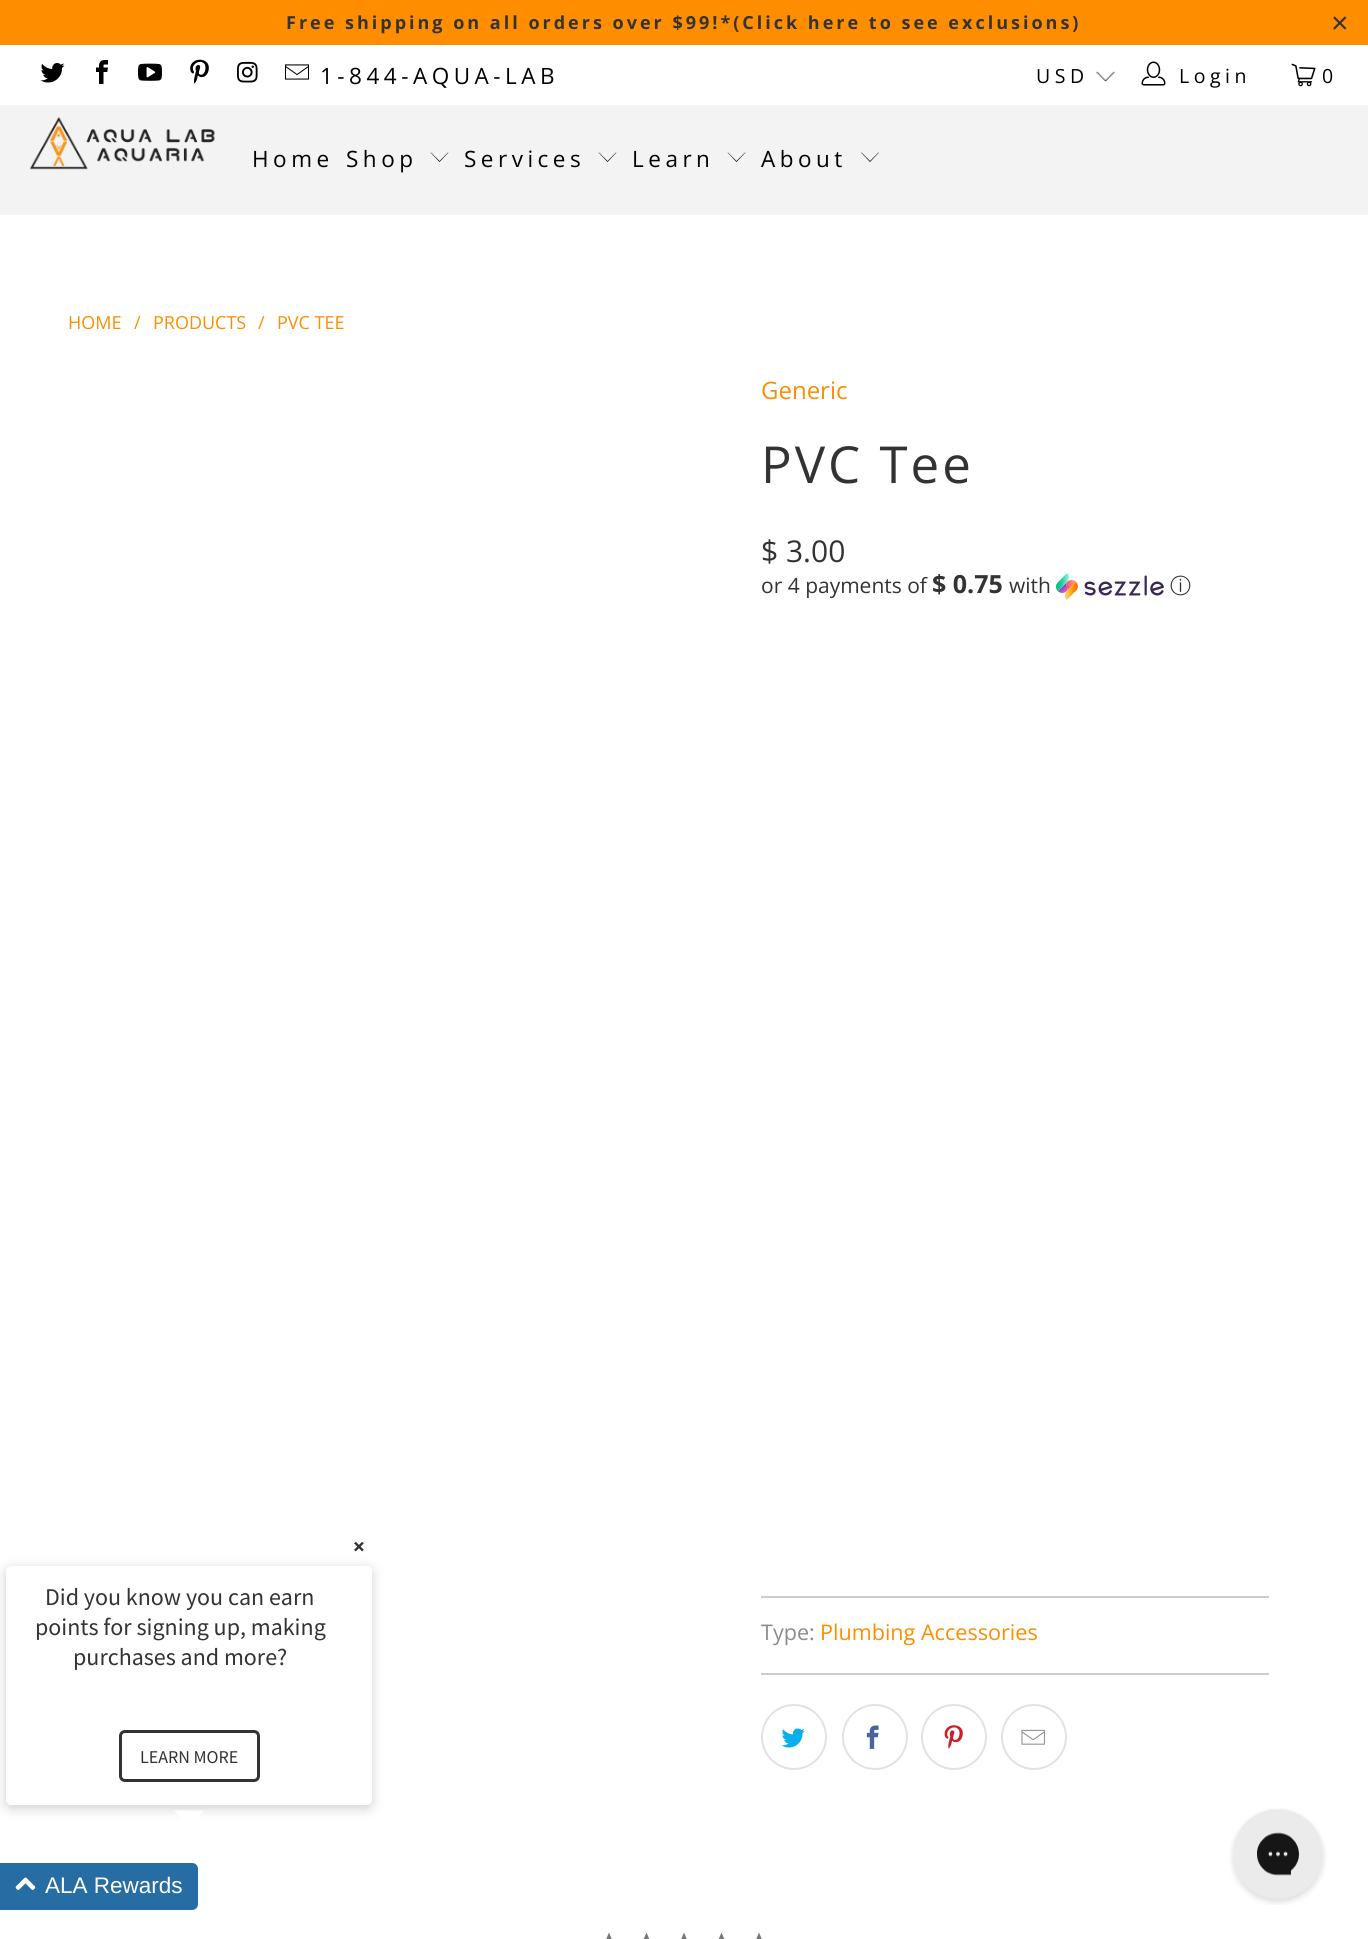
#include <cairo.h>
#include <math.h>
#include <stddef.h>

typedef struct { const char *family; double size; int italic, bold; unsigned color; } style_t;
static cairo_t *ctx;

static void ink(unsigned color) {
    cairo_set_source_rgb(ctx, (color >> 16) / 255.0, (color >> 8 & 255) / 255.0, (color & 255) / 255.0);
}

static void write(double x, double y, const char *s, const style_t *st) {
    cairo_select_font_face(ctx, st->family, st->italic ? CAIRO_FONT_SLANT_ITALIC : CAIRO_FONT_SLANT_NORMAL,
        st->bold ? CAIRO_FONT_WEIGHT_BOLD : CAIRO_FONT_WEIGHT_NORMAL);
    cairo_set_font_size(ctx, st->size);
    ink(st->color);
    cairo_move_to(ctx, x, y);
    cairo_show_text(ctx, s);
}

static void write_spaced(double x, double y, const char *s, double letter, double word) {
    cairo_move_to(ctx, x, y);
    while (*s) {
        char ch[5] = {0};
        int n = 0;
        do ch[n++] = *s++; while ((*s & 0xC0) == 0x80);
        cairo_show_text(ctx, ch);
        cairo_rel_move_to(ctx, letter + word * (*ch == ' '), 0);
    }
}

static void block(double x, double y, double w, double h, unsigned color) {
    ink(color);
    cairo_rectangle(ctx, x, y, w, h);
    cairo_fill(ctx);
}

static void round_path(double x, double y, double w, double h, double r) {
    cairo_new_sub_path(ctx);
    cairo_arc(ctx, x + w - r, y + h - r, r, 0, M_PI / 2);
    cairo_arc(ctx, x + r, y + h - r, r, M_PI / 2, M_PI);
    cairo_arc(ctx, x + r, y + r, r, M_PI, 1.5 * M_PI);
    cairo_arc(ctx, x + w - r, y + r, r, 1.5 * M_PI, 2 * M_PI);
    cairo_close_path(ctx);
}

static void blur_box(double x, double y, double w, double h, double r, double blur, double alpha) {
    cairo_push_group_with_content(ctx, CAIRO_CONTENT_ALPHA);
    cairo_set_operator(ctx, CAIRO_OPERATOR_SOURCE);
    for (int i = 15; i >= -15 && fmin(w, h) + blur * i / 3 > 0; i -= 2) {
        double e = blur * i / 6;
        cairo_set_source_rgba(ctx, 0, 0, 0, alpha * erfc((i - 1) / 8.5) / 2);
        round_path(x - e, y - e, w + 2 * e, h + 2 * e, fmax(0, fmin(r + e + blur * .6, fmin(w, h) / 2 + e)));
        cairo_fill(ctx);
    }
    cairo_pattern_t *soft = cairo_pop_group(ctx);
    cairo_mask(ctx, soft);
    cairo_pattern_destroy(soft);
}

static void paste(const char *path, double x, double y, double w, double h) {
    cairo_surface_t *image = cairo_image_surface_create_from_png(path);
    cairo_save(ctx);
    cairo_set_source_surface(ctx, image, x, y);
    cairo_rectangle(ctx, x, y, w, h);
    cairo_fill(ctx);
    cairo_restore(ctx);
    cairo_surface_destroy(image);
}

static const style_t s1 = {"Open Sans", 18, 0, 0, 0xff8d00};
static const style_t s2 = {"Open Sans", 24, 0, 0, 0xff8d00};
static const style_t s3 = {"Open Sans", 30, 0, 0, 0x333333};
static const style_t s4 = {"Open Sans", 21, 0, 0, 0x333333};
static const style_t s5 = {"Open Sans", 25, 0, 1, 0x333333};
static const style_t s6 = {"WenQuanYi Zen Hei Medium", 21, 0, 0, 0x333333};
static const style_t s7 = {"Open Sans", 21.6, 0, 0, 0x8c8b8b};
static const style_t s8 = {"Open Sans", 21.6, 0, 0, 0xff8d00};
static const style_t s9 = {"Source Sans Pro", 22.5, 0, 1, 0x333333};
static const style_t s10 = {"Source Sans Pro", 24, 0, 0, 0x333333};
static const style_t s11 = {"Source Sans Pro", 18, 0, 0, 0x333333};
static const style_t s12 = {"Liberation Sans", 22.5, 0, 0, 0xffffff};

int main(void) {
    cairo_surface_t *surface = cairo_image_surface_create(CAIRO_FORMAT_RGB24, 1368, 1939);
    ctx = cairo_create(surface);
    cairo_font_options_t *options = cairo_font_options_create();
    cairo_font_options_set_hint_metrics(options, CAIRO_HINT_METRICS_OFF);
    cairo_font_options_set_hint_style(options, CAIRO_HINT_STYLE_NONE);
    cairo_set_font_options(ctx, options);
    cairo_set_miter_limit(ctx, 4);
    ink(0xffffff);
    cairo_paint(ctx);
    block(0, 0, 1368, 45, 0xff8d00);
    cairo_select_font_face(ctx, "Open Sans", CAIRO_FONT_SLANT_NORMAL, CAIRO_FONT_WEIGHT_BOLD);
    cairo_set_font_size(ctx, 18);
    ink(0x333333);
    write_spaced(286, 29, "Free shipping on all orders over $99!*(Click here to see exclusions)", 3, 0);
    cairo_select_font_face(ctx, "Liberation Sans", CAIRO_FONT_SLANT_NORMAL, CAIRO_FONT_WEIGHT_NORMAL);
    cairo_set_font_size(ctx, 30);
    write_spaced(1331, 33, "×", 3, 0);
    paste("pic1.png", 40, 63, 25, 20);
    paste("pic2.png", 96, 60, 12, 24);
    paste("pic3.png", 138, 63, 24, 18);
    paste("pic4.png", 190, 59, 19, 25);
    paste("pic5.png", 237, 61, 21, 22);
    paste("pic6.png", 285, 64, 24, 16);
    cairo_select_font_face(ctx, "Open Sans", CAIRO_FONT_SLANT_NORMAL, CAIRO_FONT_WEIGHT_NORMAL);
    cairo_set_font_size(ctx, 22.5);
    ink(0x000000);
    write_spaced(320, 84, "1-844-AQUA-LAB", 4.5, 0);
    paste("pic7.png", 1096, 71, 19, 11);
    cairo_set_font_size(ctx, 19.5);
    write_spaced(1036, 83, "USD", 4.5, 0);
    paste("pic8.png", 1141, 61, 25, 25);
    write_spaced(1179, 83, "Login", 4.5, 0);
    paste("pic9.png", 1291, 63, 25, 24);
    write_spaced(1322, 83, "0", 4.5, 0);
    block(0, 105, 1368, 110, 0xf3f3f3);
    paste("pic10.png", 30, 117, 185, 53);
    cairo_set_font_size(ctx, 22.5);
    ink(0x000000);
    write_spaced(252, 167, "Home", 4.5, 0);
    write_spaced(346, 167, "Shop", 4.5, 0);
    cairo_new_path(ctx);
    cairo_move_to(ctx, 439.5, 162);
    cairo_line_to(ctx, 430.5, 152.5);
    cairo_line_to(ctx, 431, 152.5);
    cairo_line_to(ctx, 439.5, 161);
    cairo_line_to(ctx, 448, 152.5);
    cairo_line_to(ctx, 448.5, 152.5);
    cairo_close_path(ctx);
    cairo_fill(ctx);
    write_spaced(464, 167, "Services", 4.5, 0);
    cairo_new_path(ctx);
    cairo_move_to(ctx, 607.5, 162);
    cairo_line_to(ctx, 598.5, 152.5);
    cairo_line_to(ctx, 599, 152.5);
    cairo_line_to(ctx, 607.5, 161);
    cairo_line_to(ctx, 616, 152.5);
    cairo_line_to(ctx, 616.5, 152.5);
    cairo_close_path(ctx);
    cairo_fill(ctx);
    write_spaced(632, 167, "Learn", 4.5, 0);
    cairo_new_path(ctx);
    cairo_move_to(ctx, 736.5, 162);
    cairo_line_to(ctx, 727.5, 152.5);
    cairo_line_to(ctx, 728, 152.5);
    cairo_line_to(ctx, 736.5, 161);
    cairo_line_to(ctx, 745, 152.5);
    cairo_line_to(ctx, 745.5, 152.5);
    cairo_close_path(ctx);
    cairo_fill(ctx);
    write_spaced(761, 167, "About", 4.5, 0);
    cairo_new_path(ctx);
    cairo_move_to(ctx, 870, 162);
    cairo_line_to(ctx, 861, 152.5);
    cairo_line_to(ctx, 861.5, 152.5);
    cairo_line_to(ctx, 870, 161);
    cairo_line_to(ctx, 878.5, 152.5);
    cairo_line_to(ctx, 879, 152.5);
    cairo_close_path(ctx);
    cairo_fill(ctx);
    write(68, 329, "HOME", &s1);
    write(134, 329, "/", &s1);
    write(153, 329, "PRODUCTS", &s1);
    write(258, 329, "/", &s1);
    write(277, 329, "PVC TEE", &s1);
    write(761, 399, "Generic", &s2);
    cairo_set_font_size(ctx, 51);
    ink(0x333333);
    write_spaced(761, 483, "PVC Tee", 3, 0);
    write(761, 562, "$ 3.00", &s3);
    write(761, 593, "or 4 payments of", &s4);
    write(932, 593, "$ 0.75", &s5);
    write(1009, 593, "with", &s4);
    paste("pic11.png", 1056, 573, 108, 27);
    write(1170, 593, "ⓘ", &s6);
    block(761, 1596, 508, 2, 0xcccccc);
    write(761, 1640, "Type:", &s7);
    write(820, 1640, "Plumbing Accessories", &s8);
    block(761, 1673, 508, 2, 0xcccccc);
    cairo_new_path(ctx);
    cairo_arc(ctx, 794, 1737, 32, 0, 2 * M_PI);
    ink(0xe2e2e2);
    cairo_stroke(ctx);
    paste("pic12.png", 781, 1728, 24, 20);
    cairo_arc(ctx, 875, 1737, 32, 0, 2 * M_PI);
    cairo_stroke(ctx);
    paste("pic13.png", 866, 1725, 13, 24);
    cairo_arc(ctx, 954, 1737, 32, 0, 2 * M_PI);
    cairo_stroke(ctx);
    paste("pic14.png", 944, 1725, 19, 24);
    cairo_arc(ctx, 1034, 1737, 32, 0, 2 * M_PI);
    cairo_stroke(ctx);
    paste("pic15.png", 1021, 1729, 24, 16);
    paste("pic16.png", 606, 1932, 6, 7);
    paste("pic17.png", 643, 1932, 7, 7);
    paste("pic16.png", 681, 1932, 6, 7);
    paste("pic17.png", 718, 1932, 7, 7);
    paste("pic16.png", 756, 1932, 6, 7);
    write(353, 1554, "×", &s9);
    ink(0x000000);
    blur_box(6, 1569, 366, 239, 5, 6, 0.2);
    ink(0xffffff);
    round_path(6, 1566, 366, 239, 5);
    cairo_fill(ctx);
    write(45, 1605, "Did you know you can earn", &s10);
    write(35, 1635, "points for signing up, making", &s10);
    write(73, 1665, "purchases and more?", &s10);
    round_path(120.5, 1731.5, 138, 49, 4.5);
    cairo_set_line_width(ctx, 3);
    cairo_stroke(ctx);
    write(140, 1763, "LEARN MORE", &s11);
    ink(0xffffff);
    cairo_new_path(ctx);
    cairo_move_to(ctx, 174, 1810.5);
    cairo_line_to(ctx, 204, 1810.5);
    cairo_line_to(ctx, 189, 1825.5);
    cairo_close_path(ctx);
    cairo_fill(ctx);
    ink(0x266da3);
    cairo_new_path(ctx);
    cairo_move_to(ctx, 0, 1863);
    cairo_line_to(ctx, 192, 1863);
    cairo_curve_to(ctx, 195.5, 1863, 198, 1865.5, 198, 1869);
    cairo_line_to(ctx, 198, 1904);
    cairo_curve_to(ctx, 198, 1907.5, 195.5, 1910, 192, 1910);
    cairo_line_to(ctx, 0, 1910);
    cairo_close_path(ctx);
    cairo_fill(ctx);
    paste("pic18.png", 15, 1877, 21, 13);
    write(45, 1893, "ALA Rewards", &s12);
    paste("pic19.png", 1230, 1808, 96, 97);
    cairo_surface_write_to_png(surface, "screenshot.png");
    cairo_font_options_destroy(options);
    cairo_destroy(ctx);
    cairo_surface_destroy(surface);
    return 0;
}
